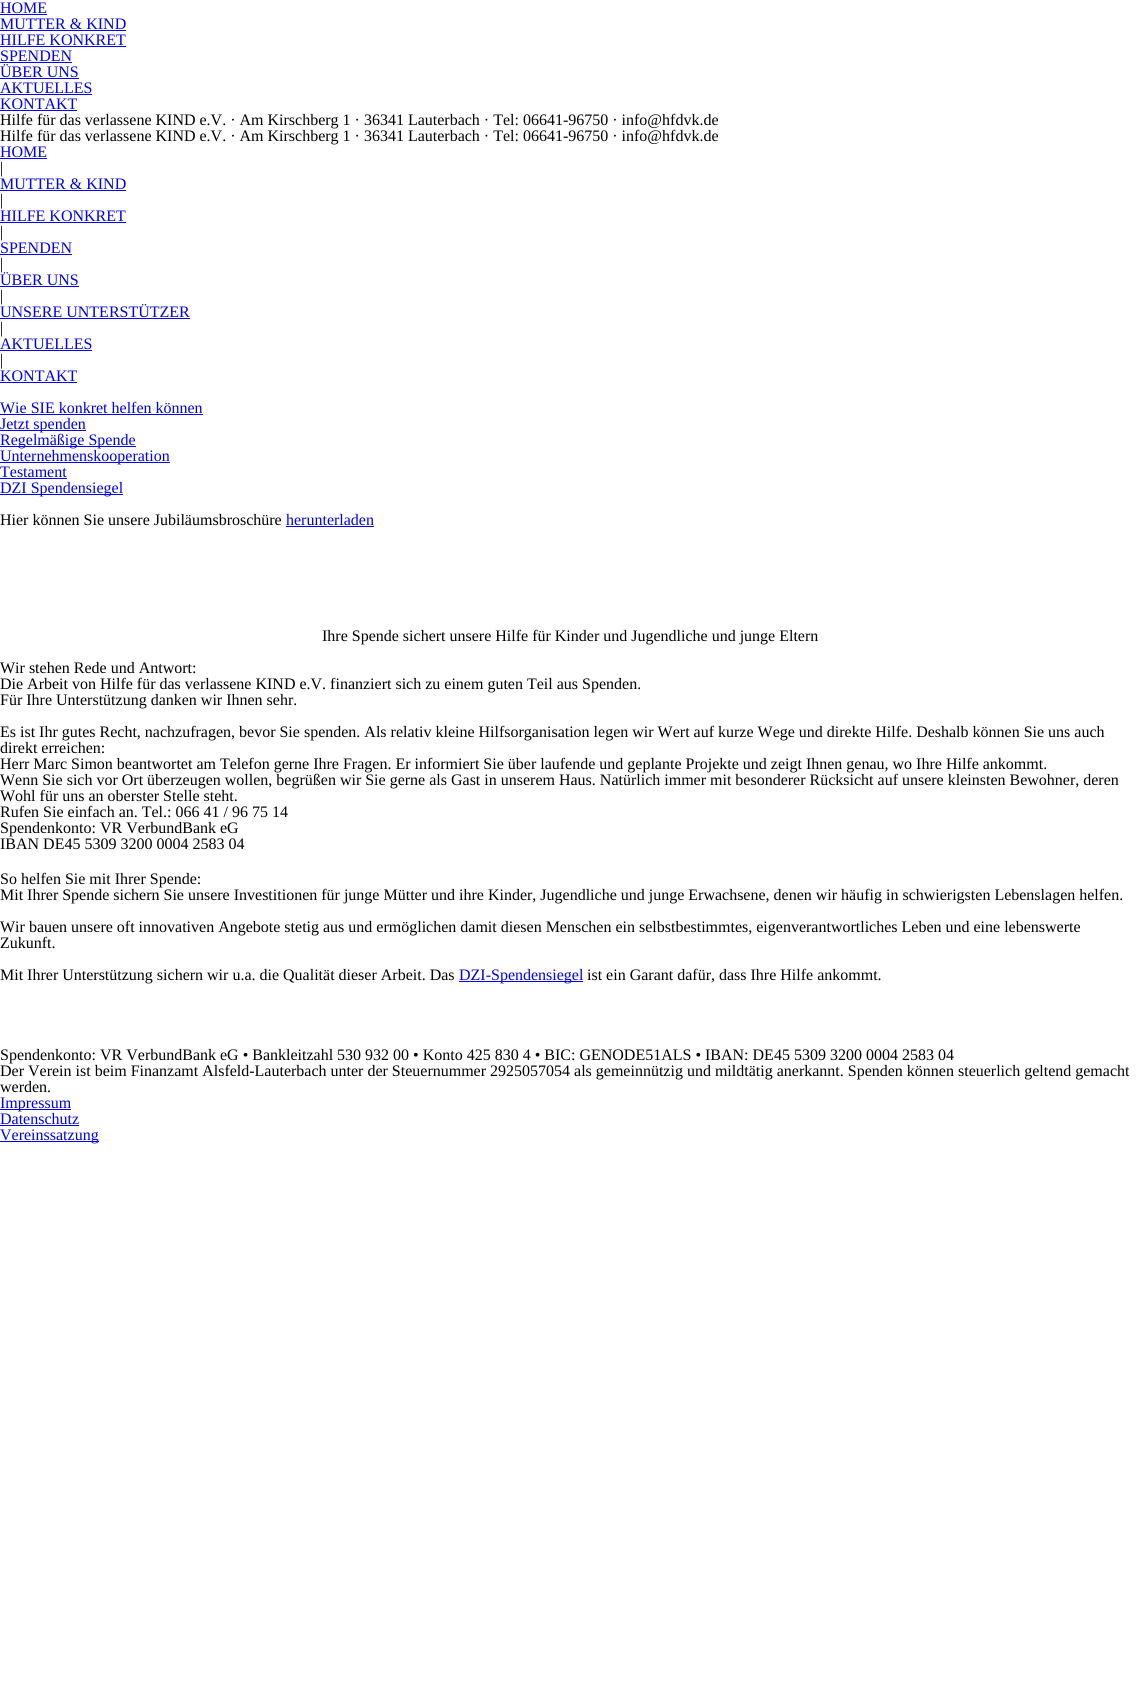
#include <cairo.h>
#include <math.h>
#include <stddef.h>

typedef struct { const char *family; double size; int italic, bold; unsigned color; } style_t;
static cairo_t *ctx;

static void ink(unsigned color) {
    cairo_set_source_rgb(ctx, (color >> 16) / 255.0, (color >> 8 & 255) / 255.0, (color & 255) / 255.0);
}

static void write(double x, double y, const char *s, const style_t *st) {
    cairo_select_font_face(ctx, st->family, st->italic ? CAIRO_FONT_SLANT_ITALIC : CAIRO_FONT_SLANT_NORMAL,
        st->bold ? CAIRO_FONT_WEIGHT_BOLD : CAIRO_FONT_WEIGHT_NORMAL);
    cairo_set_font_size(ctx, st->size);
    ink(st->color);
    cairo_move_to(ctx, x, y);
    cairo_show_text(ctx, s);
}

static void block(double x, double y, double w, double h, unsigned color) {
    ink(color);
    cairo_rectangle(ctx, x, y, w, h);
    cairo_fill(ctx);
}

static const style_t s1 = {"Liberation Serif", 16, 0, 0, 0x0000ee};
static const style_t s2 = {"Liberation Serif", 16, 0, 0, 0x000000};

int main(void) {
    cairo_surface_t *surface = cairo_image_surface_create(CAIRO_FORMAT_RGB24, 1140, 1702);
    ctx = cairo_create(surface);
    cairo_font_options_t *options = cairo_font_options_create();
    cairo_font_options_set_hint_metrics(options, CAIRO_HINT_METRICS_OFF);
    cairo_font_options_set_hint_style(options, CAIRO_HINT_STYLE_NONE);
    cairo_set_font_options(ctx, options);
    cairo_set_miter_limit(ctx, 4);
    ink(0xffffff);
    cairo_paint(ctx);
    write(0, 13, "HOME", &s1);
    block(0, 14, 47, 1, 0x0000ee);
    write(0, 29, "MUTTER & KIND", &s1);
    block(0, 30, 126, 1, 0x0000ee);
    write(0, 45, "HILFE KONKRET", &s1);
    block(0, 46, 126, 1, 0x0000ee);
    write(0, 61, "SPENDEN", &s1);
    block(0, 62, 72, 1, 0x0000ee);
    write(0, 77, "ÜBER UNS", &s1);
    block(0, 78, 79, 1, 0x0000ee);
    write(0, 93, "AKTUELLES", &s1);
    block(0, 94, 92, 1, 0x0000ee);
    write(0, 109, "KONTAKT", &s1);
    block(0, 110, 77, 1, 0x0000ee);
    write(0, 125, "Hilfe für das verlassene KIND e.V. · Am Kirschberg 1 · 36341 Lauterbach · Tel: 06641-96750 · info@hfdvk.de", &s2);
    write(0, 141, "Hilfe für das verlassene KIND e.V. · Am Kirschberg 1 · 36341 Lauterbach · Tel: 06641-96750 · info@hfdvk.de", &s2);
    write(0, 157, "HOME", &s1);
    block(0, 158, 47, 1, 0x0000ee);
    write(0, 173, "|", &s2);
    write(0, 189, "MUTTER & KIND", &s1);
    block(0, 190, 126, 1, 0x0000ee);
    write(0, 205, "|", &s2);
    write(0, 221, "HILFE KONKRET", &s1);
    block(0, 222, 126, 1, 0x0000ee);
    write(0, 237, "|", &s2);
    write(0, 253, "SPENDEN", &s1);
    block(0, 254, 72, 1, 0x0000ee);
    write(0, 269, "|", &s2);
    write(0, 285, "ÜBER UNS", &s1);
    block(0, 286, 79, 1, 0x0000ee);
    write(0, 301, "|", &s2);
    write(0, 317, "UNSERE UNTERSTÜTZER", &s1);
    block(0, 318, 190, 1, 0x0000ee);
    write(0, 333, "|", &s2);
    write(0, 349, "AKTUELLES", &s1);
    block(0, 350, 92, 1, 0x0000ee);
    write(0, 365, "|", &s2);
    write(0, 381, "KONTAKT", &s1);
    block(0, 382, 77, 1, 0x0000ee);
    write(0, 413, "Wie SIE konkret helfen können", &s1);
    block(0, 414, 203, 1, 0x0000ee);
    block(0, 430, 86, 1, 0x0000ee);
    write(0, 429, "Jetzt spenden", &s1);
    block(0, 446, 136, 1, 0x0000ee);
    write(0, 445, "Regelmäßige Spende", &s1);
    block(0, 462, 170, 1, 0x0000ee);
    write(0, 461, "Unternehmenskooperation", &s1);
    write(0, 477, "Testament", &s1);
    block(0, 478, 67, 1, 0x0000ee);
    block(0, 494, 123, 1, 0x0000ee);
    write(0, 493, "DZI Spendensiegel", &s1);
    write(0, 525, "Hier können Sie unsere Jubiläumsbroschüre", &s2);
    write(286, 525, "herunterladen", &s1);
    block(286, 526, 88, 1, 0x0000ee);
    write(322, 641, "Ihre Spende sichert unsere Hilfe für Kinder und Jugendliche und junge Eltern", &s2);
    write(0, 673, "Wir stehen Rede und Antwort:", &s2);
    write(0, 689, "Die Arbeit von Hilfe für das verlassene KIND e.V. finanziert sich zu einem guten Teil aus Spenden.", &s2);
    write(0, 705, "Für Ihre Unterstützung danken wir Ihnen sehr.", &s2);
    write(0, 737, "Es ist Ihr gutes Recht, nachzufragen, bevor Sie spenden. Als relativ kleine Hilfsorganisation legen wir Wert auf kurze Wege und direkte Hilfe. Deshalb können Sie uns auch", &s2);
    write(0, 753, "direkt erreichen:", &s2);
    write(0, 769, "Herr Marc Simon beantwortet am Telefon gerne Ihre Fragen. Er informiert Sie über laufende und geplante Projekte und zeigt Ihnen genau, wo Ihre Hilfe ankommt.", &s2);
    write(0, 785, "Wenn Sie sich vor Ort überzeugen wollen, begrüßen wir Sie gerne als Gast in unserem Haus. Natürlich immer mit besonderer Rücksicht auf unsere kleinsten Bewohner, deren", &s2);
    write(0, 801, "Wohl für uns an oberster Stelle steht.", &s2);
    write(0, 817, "Rufen Sie einfach an. Tel.: 066 41 / 96 75 14", &s2);
    write(0, 833, "Spendenkonto: VR VerbundBank eG", &s2);
    write(0, 849, "IBAN DE45 5309 3200 0004 2583 04", &s2);
    write(0, 884, "So helfen Sie mit Ihrer Spende:", &s2);
    write(0, 900, "Mit Ihrer Spende sichern Sie unsere Investitionen für junge Mütter und ihre Kinder, Jugendliche und junge Erwachsene, denen wir häufig in schwierigsten Lebenslagen helfen.", &s2);
    write(0, 932, "Wir bauen unsere oft innovativen Angebote stetig aus und ermöglichen damit diesen Menschen ein selbstbestimmtes, eigenverantwortliches Leben und eine lebenswerte", &s2);
    write(0, 948, "Zukunft.", &s2);
    write(0, 980, "Mit Ihrer Unterstützung sichern wir u.a. die Qualität dieser Arbeit. Das", &s2);
    block(459, 981, 124, 1, 0x0000ee);
    write(459, 980, "DZI-Spendensiegel", &s1);
    write(587, 980, "ist ein Garant dafür, dass Ihre Hilfe ankommt.", &s2);
    write(0, 1060, "Spendenkonto: VR VerbundBank eG • Bankleitzahl 530 932 00 • Konto 425 830 4 • BIC: GENODE51ALS • IBAN: DE45 5309 3200 0004 2583 04", &s2);
    write(0, 1076, "Der Verein ist beim Finanzamt Alsfeld-Lauterbach unter der Steuernummer 2925057054 als gemeinnützig und mildtätig anerkannt. Spenden können steuerlich geltend gemacht", &s2);
    write(0, 1092, "werden.", &s2);
    block(0, 1109, 71, 1, 0x0000ee);
    write(0, 1108, "Impressum", &s1);
    write(0, 1124, "Datenschutz", &s1);
    block(0, 1125, 79, 1, 0x0000ee);
    block(0, 1141, 99, 1, 0x0000ee);
    write(0, 1140, "Vereinssatzung", &s1);
    cairo_surface_write_to_png(surface, "screenshot.png");
    cairo_font_options_destroy(options);
    cairo_destroy(ctx);
    cairo_surface_destroy(surface);
    return 0;
}
